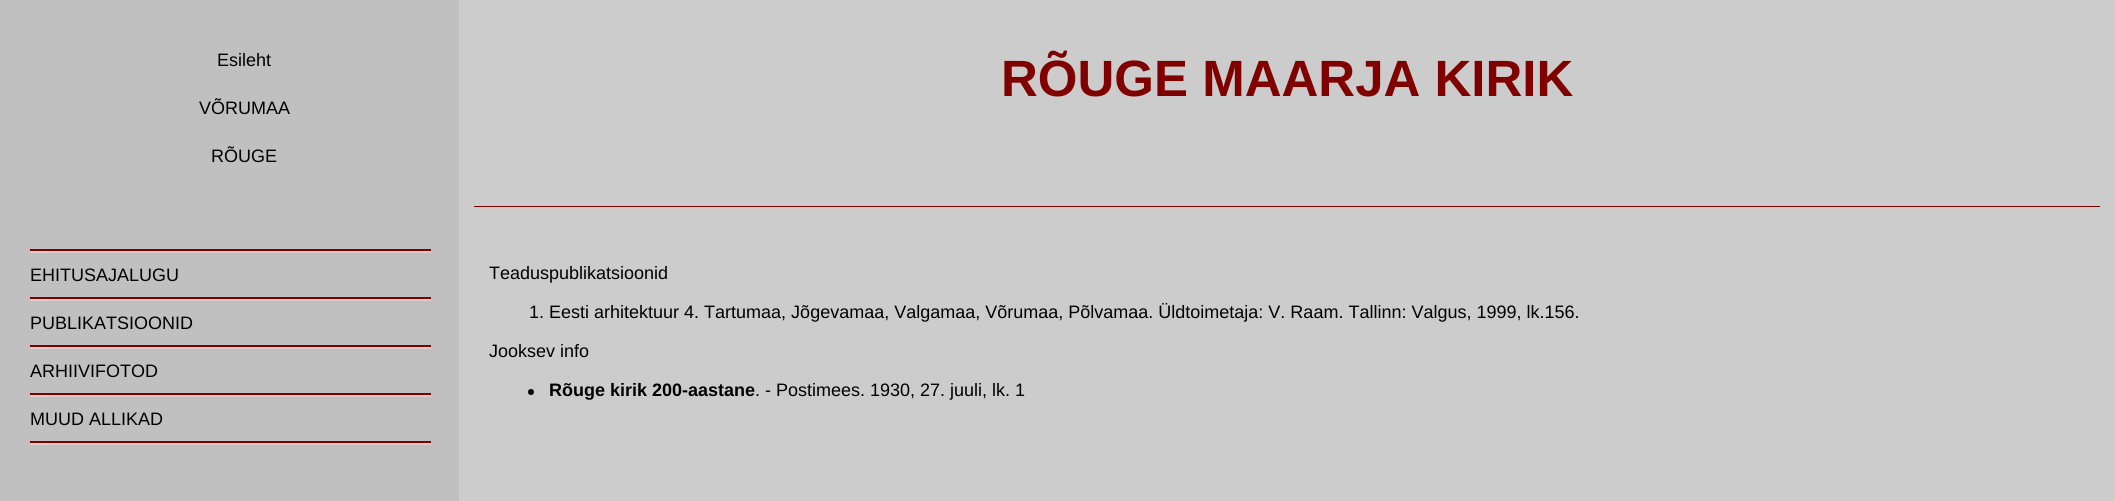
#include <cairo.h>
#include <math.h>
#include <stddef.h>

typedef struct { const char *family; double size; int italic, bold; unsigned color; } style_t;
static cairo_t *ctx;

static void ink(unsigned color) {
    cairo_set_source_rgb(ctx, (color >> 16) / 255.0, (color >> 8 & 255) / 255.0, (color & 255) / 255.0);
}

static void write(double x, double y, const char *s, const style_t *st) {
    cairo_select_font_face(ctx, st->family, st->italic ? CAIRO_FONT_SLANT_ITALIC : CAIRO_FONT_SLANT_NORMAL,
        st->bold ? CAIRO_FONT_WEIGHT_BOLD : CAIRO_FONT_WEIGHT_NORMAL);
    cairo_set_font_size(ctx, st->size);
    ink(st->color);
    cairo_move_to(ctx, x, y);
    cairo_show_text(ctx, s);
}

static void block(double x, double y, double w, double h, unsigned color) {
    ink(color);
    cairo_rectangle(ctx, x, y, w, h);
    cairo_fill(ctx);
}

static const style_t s1 = {"Liberation Sans", 18, 0, 0, 0x000000};
static const style_t s2 = {"Liberation Sans", 51, 0, 1, 0x800000};
static const style_t s3 = {"Liberation Sans", 18, 0, 1, 0x000000};

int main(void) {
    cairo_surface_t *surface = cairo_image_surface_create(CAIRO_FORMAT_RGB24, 2115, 501);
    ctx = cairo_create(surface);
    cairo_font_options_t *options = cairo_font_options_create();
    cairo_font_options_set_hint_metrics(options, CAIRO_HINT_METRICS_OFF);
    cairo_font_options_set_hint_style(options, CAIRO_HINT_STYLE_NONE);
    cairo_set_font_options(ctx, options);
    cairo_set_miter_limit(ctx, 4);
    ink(0xcccccc);
    cairo_paint(ctx);
    block(0, 0, 459, 501, 0xc0c0c0);
    write(217, 66, "Esileht", &s1);
    write(199, 114, "VÕRUMAA", &s1);
    write(211, 162, "RÕUGE", &s1);
    block(30, 249, 401, 2, 0x800000);
    block(30, 251, 401, 2, 0xd4d0c8);
    block(30, 297, 401, 2, 0x800000);
    write(30, 281, "EHITUSAJALUGU", &s1);
    block(30, 299, 401, 2, 0xd4d0c8);
    block(30, 345, 401, 2, 0x800000);
    write(30, 329, "PUBLIKATSIOONID", &s1);
    block(30, 347, 401, 2, 0xd4d0c8);
    block(30, 393, 401, 2, 0x800000);
    write(30, 377, "ARHIIVIFOTOD", &s1);
    block(30, 443, 401, 2, 0xd4d0c8);
    block(30, 395, 401, 2, 0xd4d0c8);
    block(30, 441, 401, 2, 0x800000);
    write(30, 425, "MUUD ALLIKAD", &s1);
    write(1001, 96, "RÕUGE MAARJA KIRIK", &s2);
    block(474, 206, 1626, 1, 0x800000);
    block(474, 207, 1626, 2, 0xd4d0c8);
    write(489, 279, "Teaduspublikatsioonid", &s1);
    write(529, 318, "1. Eesti arhitektuur 4. Tartumaa, Jõgevamaa, Valgamaa, Võrumaa, Põlvamaa. Üldtoimetaja: V. Raam. Tallinn: Valgus, 1999, lk.156.", &s1);
    write(489, 357, "Jooksev info", &s1);
    cairo_new_path(ctx);
    cairo_arc(ctx, 531, 392, 3, 0, 2 * M_PI);
    cairo_fill(ctx);
    write(549, 396, "Rõuge kirik 200-aastane", &s3);
    write(755, 396, ". - Postimees. 1930, 27. juuli, lk. 1", &s1);
    cairo_surface_write_to_png(surface, "screenshot.png");
    cairo_font_options_destroy(options);
    cairo_destroy(ctx);
    cairo_surface_destroy(surface);
    return 0;
}
